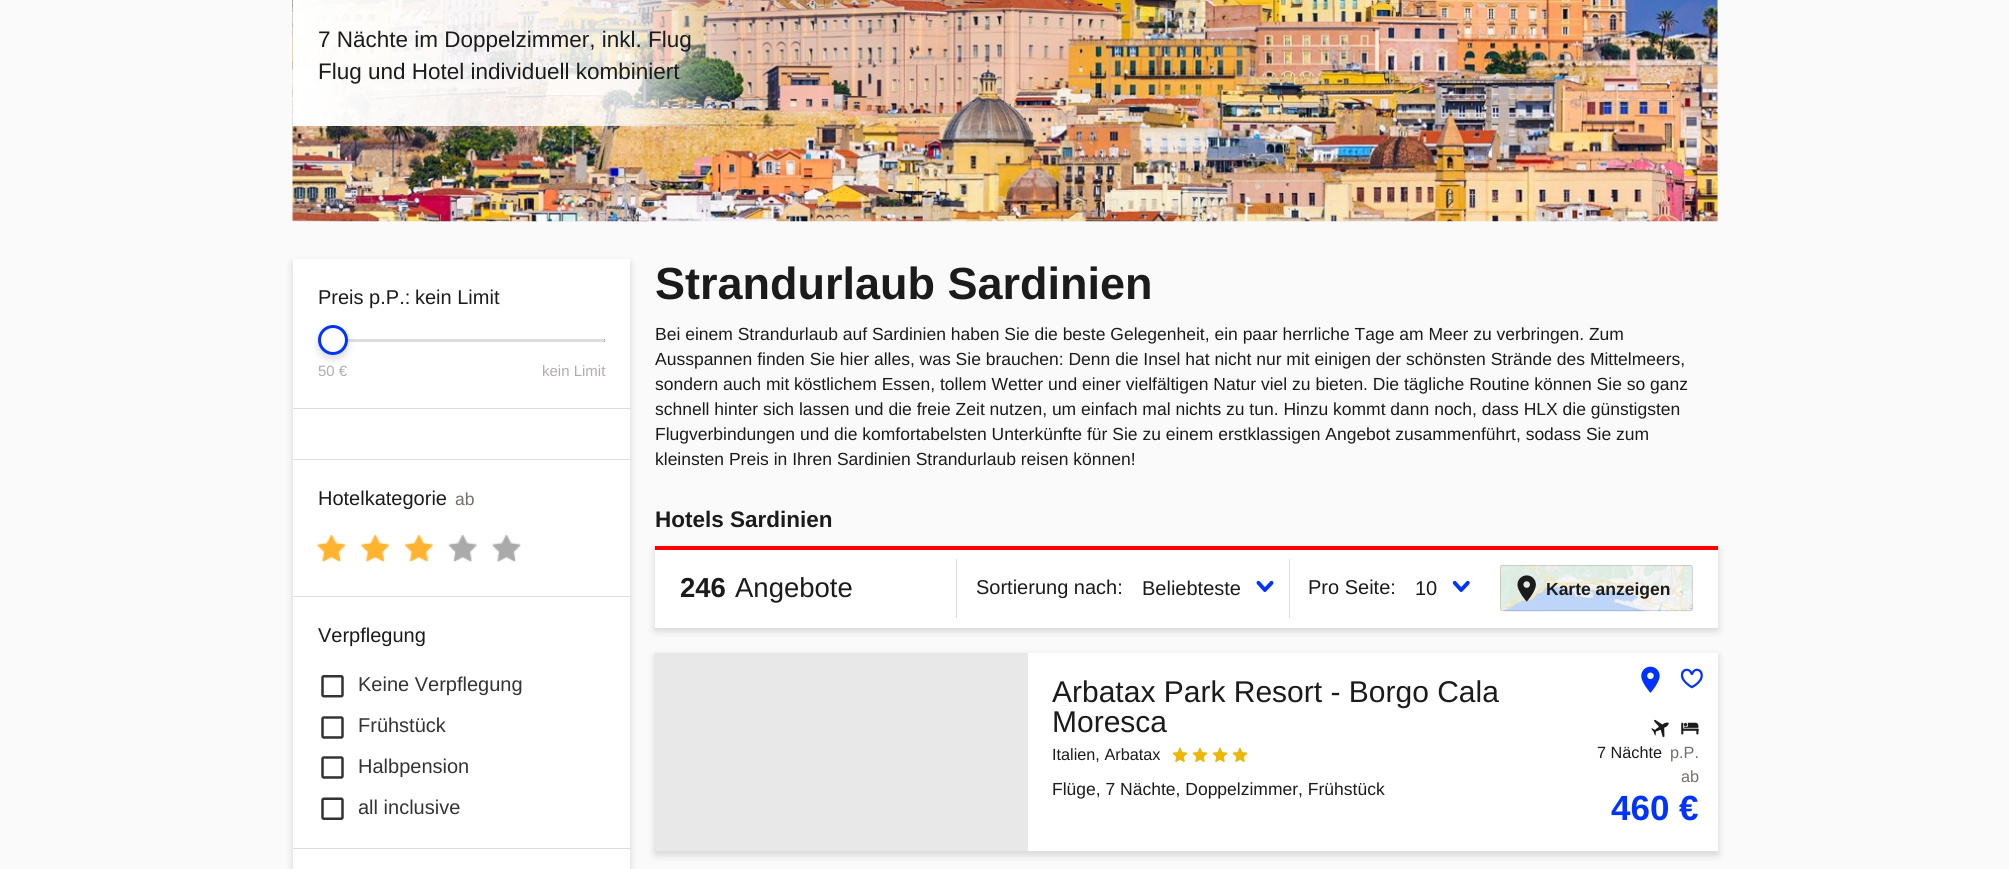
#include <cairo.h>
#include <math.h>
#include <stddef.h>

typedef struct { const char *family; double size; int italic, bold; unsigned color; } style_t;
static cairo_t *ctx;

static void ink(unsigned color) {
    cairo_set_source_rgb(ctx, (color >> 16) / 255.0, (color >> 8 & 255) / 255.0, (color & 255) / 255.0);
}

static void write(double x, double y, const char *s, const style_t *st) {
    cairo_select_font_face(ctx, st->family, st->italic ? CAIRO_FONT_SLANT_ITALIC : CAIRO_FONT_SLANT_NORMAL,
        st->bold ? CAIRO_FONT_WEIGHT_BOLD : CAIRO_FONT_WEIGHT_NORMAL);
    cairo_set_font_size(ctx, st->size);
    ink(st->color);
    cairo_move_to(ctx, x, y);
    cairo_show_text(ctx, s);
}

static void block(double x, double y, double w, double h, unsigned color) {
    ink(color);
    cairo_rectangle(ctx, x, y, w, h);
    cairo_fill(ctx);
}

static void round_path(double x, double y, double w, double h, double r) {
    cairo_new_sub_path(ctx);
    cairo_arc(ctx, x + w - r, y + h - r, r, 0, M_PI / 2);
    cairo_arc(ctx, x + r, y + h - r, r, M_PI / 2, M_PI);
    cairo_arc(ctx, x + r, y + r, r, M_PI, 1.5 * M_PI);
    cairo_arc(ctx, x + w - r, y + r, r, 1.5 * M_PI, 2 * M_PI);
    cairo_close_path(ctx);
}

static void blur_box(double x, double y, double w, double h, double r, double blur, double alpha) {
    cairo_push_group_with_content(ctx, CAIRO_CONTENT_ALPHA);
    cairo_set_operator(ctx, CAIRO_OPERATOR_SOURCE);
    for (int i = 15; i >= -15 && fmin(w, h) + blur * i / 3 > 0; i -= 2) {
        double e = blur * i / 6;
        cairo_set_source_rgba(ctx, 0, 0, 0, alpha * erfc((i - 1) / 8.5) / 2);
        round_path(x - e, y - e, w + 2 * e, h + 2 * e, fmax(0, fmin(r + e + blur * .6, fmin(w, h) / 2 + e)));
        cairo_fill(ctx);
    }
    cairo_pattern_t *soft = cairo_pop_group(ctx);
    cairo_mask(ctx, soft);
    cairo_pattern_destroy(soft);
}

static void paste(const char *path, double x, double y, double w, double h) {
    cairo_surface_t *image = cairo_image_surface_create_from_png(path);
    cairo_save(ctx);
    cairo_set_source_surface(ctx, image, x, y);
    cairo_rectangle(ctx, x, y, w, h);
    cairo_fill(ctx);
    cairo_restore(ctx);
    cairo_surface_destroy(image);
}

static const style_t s1 = {"Liberation Sans", 22.5, 0, 0, 0x1b1b1b};
static const style_t s2 = {"Liberation Sans", 20, 0, 0, 0x1b1b1b};
static const style_t s3 = {"Liberation Sans", 15, 0, 0, 0xb0acac};
static const style_t s4 = {"Liberation Sans", 17.5, 0, 0, 0x756e6d};
static const style_t s5 = {"Liberation Sans", 20, 0, 0, 0x333333};
static const style_t s6 = {"Liberation Sans", 45, 0, 1, 0x1b1b1b};
static const style_t s7 = {"Liberation Sans", 17.5, 0, 0, 0x1b1b1b};
static const style_t s8 = {"Liberation Sans", 22.5, 0, 1, 0x1b1b1b};
static const style_t s9 = {"Liberation Sans", 27.5, 0, 1, 0x1b1b1b};
static const style_t s10 = {"Liberation Sans", 27.5, 0, 0, 0x1b1b1b};
static const style_t s11 = {"Liberation Sans", 17.5, 0, 1, 0x1b1b1b};
static const style_t s12 = {"Liberation Sans", 30, 0, 0, 0x1b1b1b};
static const style_t s13 = {"Liberation Sans", 16.25, 0, 0, 0x1b1b1b};
static const style_t s14 = {"Liberation Sans", 16.25, 0, 0, 0x756e6d};
static const style_t s15 = {"Liberation Sans", 35, 0, 1, 0x0033ff};

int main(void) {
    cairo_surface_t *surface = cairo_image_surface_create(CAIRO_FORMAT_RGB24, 2009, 869);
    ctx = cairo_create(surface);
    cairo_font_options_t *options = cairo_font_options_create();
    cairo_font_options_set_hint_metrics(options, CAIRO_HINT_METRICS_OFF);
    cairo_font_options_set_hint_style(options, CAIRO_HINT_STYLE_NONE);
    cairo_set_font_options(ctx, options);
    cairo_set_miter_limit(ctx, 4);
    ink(0xfafafa);
    cairo_paint(ctx);
    paste("pic1.png", 292, 0, 1426, 222);
    write(318, 47, "7 Nächte im Doppelzimmer, inkl. Flug", &s1);
    write(318, 79, "Flug und Hotel individuell kombiniert", &s1);
    ink(0x000000);
    blur_box(293, 263, 337, 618, 0, 4, 0.15);
    block(293, 259, 337, 610, 0xffffff);
    block(293, 408, 337, 1, 0xdddddd);
    write(318, 304, "Preis p.P.:", &s2);
    write(415, 304, "kein Limit", &s2);
    block(603, 339, 2, 3, 0x0033ff);
    ink(0xdddddd);
    cairo_new_path(ctx);
    cairo_move_to(ctx, 318, 339);
    cairo_line_to(ctx, 603.5, 339);
    cairo_curve_to(ctx, 604.5, 339, 605, 339.5, 605, 340.5);
    cairo_curve_to(ctx, 605, 341.5, 604.5, 342, 603.5, 342);
    cairo_line_to(ctx, 318, 342);
    cairo_close_path(ctx);
    cairo_fill(ctx);
    ink(0x000000);
    blur_box(318, 329, 30, 30, 15, 4, 0.15);
    ink(0xffffff);
    cairo_arc(ctx, 333, 340, 13.5, 0, 2 * M_PI);
    cairo_fill_preserve(ctx);
    ink(0x0033ff);
    cairo_set_line_width(ctx, 3);
    cairo_stroke(ctx);
    write(318, 376, "50 €", &s3);
    write(542, 376, "kein Limit", &s3);
    block(293, 459, 337, 1, 0xdddddd);
    block(293, 596, 337, 1, 0xdddddd);
    write(318, 505, "Hotelkategorie", &s2);
    write(455, 505, "ab", &s4);
    paste("pic2.png", 317, 534, 29, 28);
    paste("pic3.png", 361, 534, 29, 28);
    paste("pic4.png", 404, 534, 30, 28);
    paste("pic5.png", 448, 534, 29, 28);
    paste("pic6.png", 492, 534, 29, 28);
    block(293, 848, 337, 1, 0xdddddd);
    write(318, 642, "Verpflegung", &s2);
    paste("pic7.png", 321, 675, 23, 23);
    write(358, 691, "Keine Verpflegung", &s5);
    paste("pic8.png", 321, 716, 23, 23);
    write(358, 732, "Frühstück", &s5);
    paste("pic8.png", 321, 756, 23, 23);
    write(358, 773, "Halbpension", &s5);
    paste("pic9.png", 321, 797, 23, 23);
    write(358, 814, "all inclusive", &s5);
    write(655, 299, "Strandurlaub Sardinien", &s6);
    write(655, 340, "Bei einem Strandurlaub auf Sardinien haben Sie die beste Gelegenheit, ein paar herrliche Tage am Meer zu verbringen. Zum", &s7);
    write(655, 365, "Ausspannen finden Sie hier alles, was Sie brauchen: Denn die Insel hat nicht nur mit einigen der schönsten Strände des Mittelmeers,", &s7);
    write(655, 390, "sondern auch mit köstlichem Essen, tollem Wetter und einer vielfältigen Natur viel zu bieten. Die tägliche Routine können Sie so ganz", &s7);
    write(655, 415, "schnell hinter sich lassen und die freie Zeit nutzen, um einfach mal nichts zu tun. Hinzu kommt dann noch, dass HLX die günstigsten", &s7);
    write(655, 440, "Flugverbindungen und die komfortabelsten Unterkünfte für Sie zu einem erstklassigen Angebot zusammenführt, sodass Sie zum", &s7);
    write(655, 465, "kleinsten Preis in Ihren Sardinien Strandurlaub reisen können!", &s7);
    write(655, 527, "Hotels Sardinien", &s8);
    ink(0x000000);
    blur_box(655, 550, 1063, 81, 0, 4, 0.15);
    block(655, 550, 1063, 78, 0xffffff);
    block(655, 546, 1063, 4, 0xff0000);
    write(680, 597, "246", &s9);
    write(735, 597, "Angebote", &s10);
    block(956, 559, 1, 59, 0xdddddd);
    write(976, 594, "Sortierung nach:", &s2);
    write(1142, 595, "Beliebteste", &s2);
    paste("pic10.png", 1256, 580, 18, 12);
    block(1289, 559, 1, 59, 0xdddddd);
    write(1308, 594, "Pro Seite:", &s2);
    write(1415, 595, "10", &s2);
    paste("pic11.png", 1452, 580, 18, 12);
    paste("pic12.png", 1500, 565, 193, 47);
    round_path(1500.5, 565.5, 192, 45, 2);
    cairo_set_source_rgba(ctx, 0.106, 0.106, 0.106, 0.15);
    cairo_set_line_width(ctx, 1);
    cairo_stroke(ctx);
    paste("pic13.png", 1517, 575, 19, 27);
    write(1546, 595, "Karte anzeigen", &s11);
    ink(0x000000);
    blur_box(655, 656, 1063, 199, 0, 4, 0.15);
    block(1028, 653, 690, 198, 0xffffff);
    paste("pic14.png", 1641, 666, 19, 27);
    paste("pic15.png", 1680, 668, 23, 21);
    block(655, 653, 373, 198, 0xe8e8e8);
    write(1052, 702, "Arbatax Park Resort - Borgo Cala", &s12);
    write(1052, 732, "Moresca", &s12);
    write(1052, 760, "Italien, Arbatax", &s13);
    paste("pic16.png", 1172, 747, 16, 16);
    paste("pic16.png", 1192, 747, 16, 16);
    paste("pic16.png", 1212, 747, 16, 16);
    paste("pic16.png", 1232, 747, 16, 16);
    write(1052, 795, "Flüge, 7 Nächte, Doppelzimmer, Frühstück", &s7);
    paste("pic17.png", 1651, 719, 18, 19);
    paste("pic18.png", 1681, 722, 18, 13);
    write(1597, 758, "7 Nächte", &s13);
    write(1670, 758, "p.P.", &s14);
    write(1681, 782, "ab", &s14);
    write(1611, 820, "460 €", &s15);
    cairo_surface_write_to_png(surface, "screenshot.png");
    cairo_font_options_destroy(options);
    cairo_destroy(ctx);
    cairo_surface_destroy(surface);
    return 0;
}
